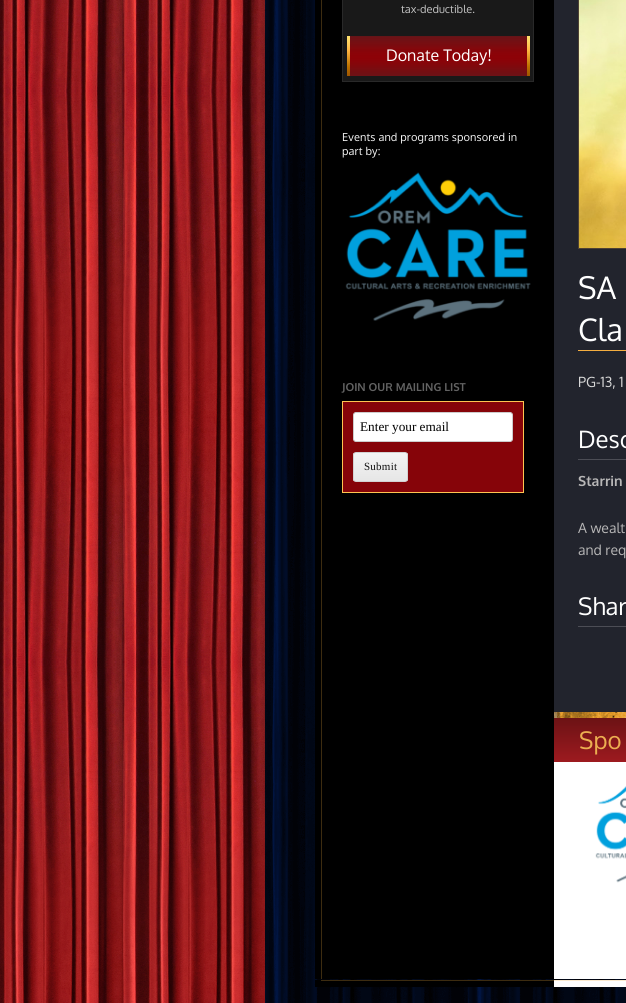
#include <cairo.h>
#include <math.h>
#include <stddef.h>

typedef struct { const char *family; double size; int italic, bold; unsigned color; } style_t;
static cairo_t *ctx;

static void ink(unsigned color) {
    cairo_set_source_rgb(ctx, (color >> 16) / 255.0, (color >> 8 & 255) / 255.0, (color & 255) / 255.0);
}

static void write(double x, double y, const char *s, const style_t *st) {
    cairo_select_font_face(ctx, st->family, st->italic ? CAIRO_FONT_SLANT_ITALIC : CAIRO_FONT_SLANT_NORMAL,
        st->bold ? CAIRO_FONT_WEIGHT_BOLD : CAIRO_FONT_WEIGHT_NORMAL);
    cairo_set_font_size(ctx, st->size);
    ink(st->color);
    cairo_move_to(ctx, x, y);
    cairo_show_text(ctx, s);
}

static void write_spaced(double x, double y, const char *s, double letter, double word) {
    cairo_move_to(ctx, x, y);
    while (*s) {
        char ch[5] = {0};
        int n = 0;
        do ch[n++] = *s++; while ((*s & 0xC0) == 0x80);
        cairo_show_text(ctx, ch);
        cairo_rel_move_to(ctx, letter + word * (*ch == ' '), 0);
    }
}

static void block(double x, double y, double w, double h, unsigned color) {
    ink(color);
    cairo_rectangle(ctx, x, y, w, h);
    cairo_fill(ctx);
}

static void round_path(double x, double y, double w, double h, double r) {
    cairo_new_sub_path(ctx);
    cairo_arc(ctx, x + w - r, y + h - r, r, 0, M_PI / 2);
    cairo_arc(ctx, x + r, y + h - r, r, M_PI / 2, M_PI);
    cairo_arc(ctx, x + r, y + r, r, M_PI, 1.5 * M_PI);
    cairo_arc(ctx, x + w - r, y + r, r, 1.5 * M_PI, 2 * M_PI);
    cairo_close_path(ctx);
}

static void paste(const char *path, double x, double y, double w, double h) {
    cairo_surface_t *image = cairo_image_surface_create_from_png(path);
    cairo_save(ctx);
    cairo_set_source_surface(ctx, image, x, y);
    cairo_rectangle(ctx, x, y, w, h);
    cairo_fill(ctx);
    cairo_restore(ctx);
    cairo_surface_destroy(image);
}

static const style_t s1 = {"Oxygen", 11, 0, 0, 0xc4c4c4};
static const style_t s2 = {"Oxygen", 16, 0, 0, 0xffffff};
static const style_t s3 = {"Oxygen", 11, 0, 1, 0x636363};
static const style_t s4 = {"Liberation Serif", 13.25, 0, 0, 0x000000};
static const style_t s5 = {"Oxygen", 31, 0, 0, 0xffffff};
static const style_t s6 = {"Oxygen", 14, 0, 0, 0xd7d7d7};
static const style_t s7 = {"Oxygen", 24, 0, 0, 0xffffff};
static const style_t s8 = {"Oxygen", 14, 0, 1, 0xb8b7b7};
static const style_t s9 = {"Oxygen", 14, 0, 0, 0xb8b7b7};
static const style_t s10 = {"Oxygen", 24, 0, 0, 0xecaf51};

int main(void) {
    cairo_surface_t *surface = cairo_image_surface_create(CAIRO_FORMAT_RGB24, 626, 1003);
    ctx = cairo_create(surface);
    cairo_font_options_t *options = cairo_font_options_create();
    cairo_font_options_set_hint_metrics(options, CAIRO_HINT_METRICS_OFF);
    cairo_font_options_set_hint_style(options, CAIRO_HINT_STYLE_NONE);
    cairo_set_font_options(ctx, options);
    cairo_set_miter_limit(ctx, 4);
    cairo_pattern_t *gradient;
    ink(0xffffff);
    cairo_paint(ctx);
    paste("pic1.png", 0, 0, 265, 1003);
    paste("pic2.png", 265, 0, 361, 1003);
    paste("pic3.png", 315, 0, 311, 979);
    ink(0x191919);
    cairo_rectangle(ctx, 342.5, -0.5, 191, 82);
    cairo_fill_preserve(ctx);
    ink(0x292929);
    cairo_set_line_width(ctx, 1);
    cairo_stroke(ctx);
    write(401, 13, "tax-deductible.", &s1);
    block(350, 36, 177, 40, 0x8d0207);
    paste("pic4.png", 347, 36, 183, 40);
    write(386, 61, "Donate Today!", &s2);
    cairo_set_font_size(ctx, 11);
    ink(0xf9f9f9);
    write_spaced(342, 141, "Events and programs sponsored in", 0.1, 0);
    write_spaced(342, 155, "part by:", 0.1, 0);
    paste("pic5.png", 345, 172, 186, 149);
    write(342, 391, "JOIN OUR MAILING LIST", &s3);
    ink(0x860409);
    cairo_rectangle(ctx, 342.5, 401.5, 181, 91);
    cairo_fill_preserve(ctx);
    ink(0xffc451);
    cairo_stroke(ctx);
    ink(0xffffff);
    round_path(353.5, 412.5, 159, 29, 2.5);
    cairo_fill_preserve(ctx);
    ink(0xcccccc);
    cairo_stroke(ctx);
    write(360, 431, "Enter your email", &s4);
    cairo_save(ctx);
    round_path(353, 452, 55, 30, 3);
    cairo_clip(ctx);
    gradient = cairo_pattern_create_linear(381, 453, 381, 481);
    cairo_pattern_add_color_stop_rgba(gradient, 0, 0.957, 0.957, 0.957, 1);
    cairo_pattern_add_color_stop_rgba(gradient, 1, 0.902, 0.902, 0.902, 1);
    cairo_set_source(ctx, gradient);
    cairo_pattern_destroy(gradient);
    cairo_rectangle(ctx, 353, 453, 55, 28);
    cairo_fill(ctx);
    cairo_restore(ctx);
    round_path(353.5, 452.5, 54, 29, 2.5);
    ink(0xd2d2d2);
    cairo_stroke(ctx);
    cairo_set_font_size(ctx, 11);
    ink(0x111111);
    write_spaced(364, 470, "Submit", 0.25, 0);
    cairo_rectangle(ctx, 578.5, -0.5, 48, 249);
    ink(0x4d4134);
    cairo_stroke(ctx);
    paste("pic6.png", 579, 0, 47, 248);
    block(578, 350, 48, 1, 0xf5ae40);
    write(578, 299, "SA", &s5);
    write(578, 341, "Cla", &s5);
    write(578, 387, "PG-13, 1", &s6);
    block(578, 459, 48, 1, 0x4c4d55);
    write(578, 448, "Desc", &s7);
    write(578, 486, "Starrin", &s8);
    write(578, 533, "A wealt", &s9);
    write(578, 555, "and req", &s9);
    block(578, 626, 48, 1, 0x4c4d55);
    write(578, 615, "Shar", &s7);
    paste("pic7.png", 554, 712, 72, 6);
    block(554, 762, 72, 217, 0xffffff);
    gradient = cairo_pattern_create_linear(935, 718, 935, 762);
    cairo_pattern_add_color_stop_rgba(gradient, 0, 0.424, 0.071, 0.082, 1);
    cairo_pattern_add_color_stop_rgba(gradient, 1, 0.616, 0.102, 0.122, 1);
    cairo_set_source(ctx, gradient);
    cairo_pattern_destroy(gradient);
    cairo_rectangle(ctx, 554, 718, 72, 44);
    cairo_fill(ctx);
    write(579, 749, "Spo", &s10);
    paste("pic8.png", 595, 786, 31, 97);
    paste("pic9.png", 315, 980, 311, 7);
    cairo_surface_write_to_png(surface, "screenshot.png");
    cairo_font_options_destroy(options);
    cairo_destroy(ctx);
    cairo_surface_destroy(surface);
    return 0;
}
